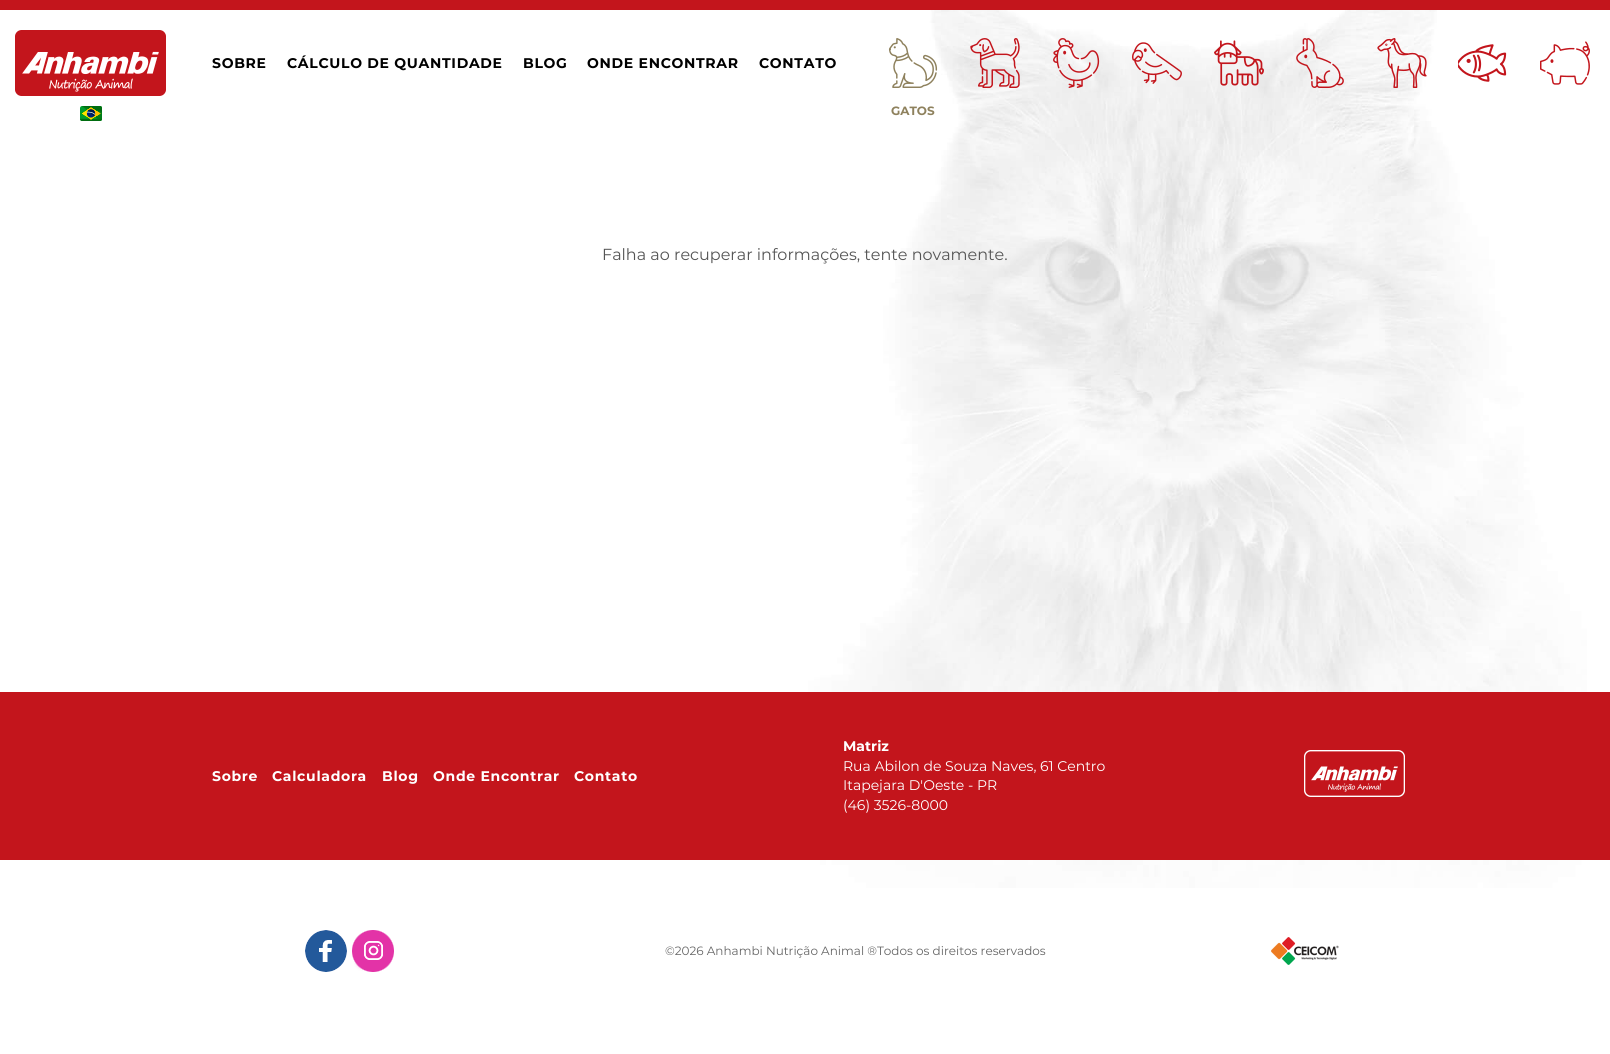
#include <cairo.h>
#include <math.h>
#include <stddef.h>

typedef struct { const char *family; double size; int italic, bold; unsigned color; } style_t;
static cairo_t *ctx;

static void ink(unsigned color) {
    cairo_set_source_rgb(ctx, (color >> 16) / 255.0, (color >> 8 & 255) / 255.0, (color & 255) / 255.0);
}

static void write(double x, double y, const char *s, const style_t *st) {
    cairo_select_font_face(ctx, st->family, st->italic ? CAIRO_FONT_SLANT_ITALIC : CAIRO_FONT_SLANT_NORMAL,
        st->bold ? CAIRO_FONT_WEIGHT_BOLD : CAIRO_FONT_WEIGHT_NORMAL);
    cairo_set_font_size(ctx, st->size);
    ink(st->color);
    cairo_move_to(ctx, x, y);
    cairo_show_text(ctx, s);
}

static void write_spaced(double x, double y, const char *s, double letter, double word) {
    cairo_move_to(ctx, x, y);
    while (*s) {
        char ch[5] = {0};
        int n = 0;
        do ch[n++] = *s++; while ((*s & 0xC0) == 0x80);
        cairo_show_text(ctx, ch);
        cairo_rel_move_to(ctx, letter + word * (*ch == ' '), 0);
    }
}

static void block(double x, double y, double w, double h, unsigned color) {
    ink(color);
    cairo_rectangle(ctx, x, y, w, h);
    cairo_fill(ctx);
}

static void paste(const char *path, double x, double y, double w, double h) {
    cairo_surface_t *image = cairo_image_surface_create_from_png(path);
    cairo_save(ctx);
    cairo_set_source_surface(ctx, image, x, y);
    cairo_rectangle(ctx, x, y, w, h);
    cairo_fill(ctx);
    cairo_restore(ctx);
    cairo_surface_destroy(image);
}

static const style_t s1 = {"Montserrat", 12, 0, 1, 0x8e815d};
static const style_t s2 = {"Montserrat", 16, 0, 0, 0x555555};
static const style_t s3 = {"Montserrat", 14, 0, 1, 0xffffff};
static const style_t s4 = {"Montserrat", 14, 0, 0, 0xffffff};
static const style_t s5 = {"Montserrat", 12, 0, 0, 0x666666};

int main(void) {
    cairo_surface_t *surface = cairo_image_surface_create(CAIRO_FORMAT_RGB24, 1610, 1054);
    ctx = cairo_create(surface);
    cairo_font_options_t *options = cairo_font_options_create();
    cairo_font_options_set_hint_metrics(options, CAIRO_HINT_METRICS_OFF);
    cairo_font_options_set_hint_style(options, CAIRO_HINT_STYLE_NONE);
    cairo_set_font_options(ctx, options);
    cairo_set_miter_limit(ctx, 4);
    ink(0xffffff);
    cairo_paint(ctx);
    block(0, 0, 1610, 10, 0xc3151c);
    paste("pic1.png", 15, 30, 151, 66);
    paste("pic2.png", 80, 106, 22, 15);
    cairo_select_font_face(ctx, "Montserrat", CAIRO_FONT_SLANT_NORMAL, CAIRO_FONT_WEIGHT_BOLD);
    cairo_set_font_size(ctx, 14);
    ink(0x000000);
    write_spaced(212, 68, "SOBRE", 0.7, 0);
    write_spaced(287, 68, "CÁLCULO DE QUANTIDADE", 0.7, 0);
    write_spaced(523, 68, "BLOG", 0.7, 0);
    write_spaced(587, 68, "ONDE ENCONTRAR", 0.7, 0);
    paste("pic12.png", 797, 10, 790, 878);
    write_spaced(759, 68, "CONTATO", 0.7, 0);
    paste("pic3.png", 970, 38, 50, 50);
    paste("pic4.png", 1053, 38, 47, 50);
    paste("pic5.png", 1132, 42, 50, 42);
    paste("pic6.png", 1214, 40, 50, 46);
    paste("pic7.png", 1296, 38, 48, 50);
    paste("pic8.png", 1377, 38, 50, 50);
    paste("pic9.png", 1458, 44, 49, 38);
    paste("pic10.png", 1540, 41, 50, 44);
    paste("pic11.png", 888, 38, 50, 50);
    write(891, 115, "GATOS", &s1);
    write(602, 260, "Falha ao recuperar informações, tente novamente.", &s2);
    block(0, 692, 1610, 168, 0xc3151c);
    cairo_select_font_face(ctx, "Montserrat", CAIRO_FONT_SLANT_NORMAL, CAIRO_FONT_WEIGHT_BOLD);
    cairo_set_font_size(ctx, 14);
    ink(0xffffff);
    write_spaced(212, 781, "Sobre", 0.7, 0);
    write_spaced(272, 781, "Calculadora", 0.7, 0);
    write_spaced(382, 781, "Blog", 0.7, 0);
    write_spaced(433, 781, "Onde Encontrar", 0.7, 0);
    write_spaced(574, 781, "Contato", 0.7, 0);
    write(843, 751, "Matriz", &s3);
    write(843, 771, "Rua Abilon de Souza Naves, 61 Centro", &s4);
    write(843, 790, "Itapejara D'Oeste - PR", &s4);
    write(843, 810, "(46) 3526-8000", &s4);
    paste("pic13.png", 1304, 750, 101, 47);
    paste("pic14.png", 305, 930, 42, 42);
    paste("pic15.png", 352, 930, 42, 42);
    write(665, 955, "©2026 Anhambi Nutrição Animal ®Todos os direitos reservados", &s5);
    paste("pic16.png", 1271, 937, 68, 28);
    cairo_surface_write_to_png(surface, "screenshot.png");
    cairo_font_options_destroy(options);
    cairo_destroy(ctx);
    cairo_surface_destroy(surface);
    return 0;
}
